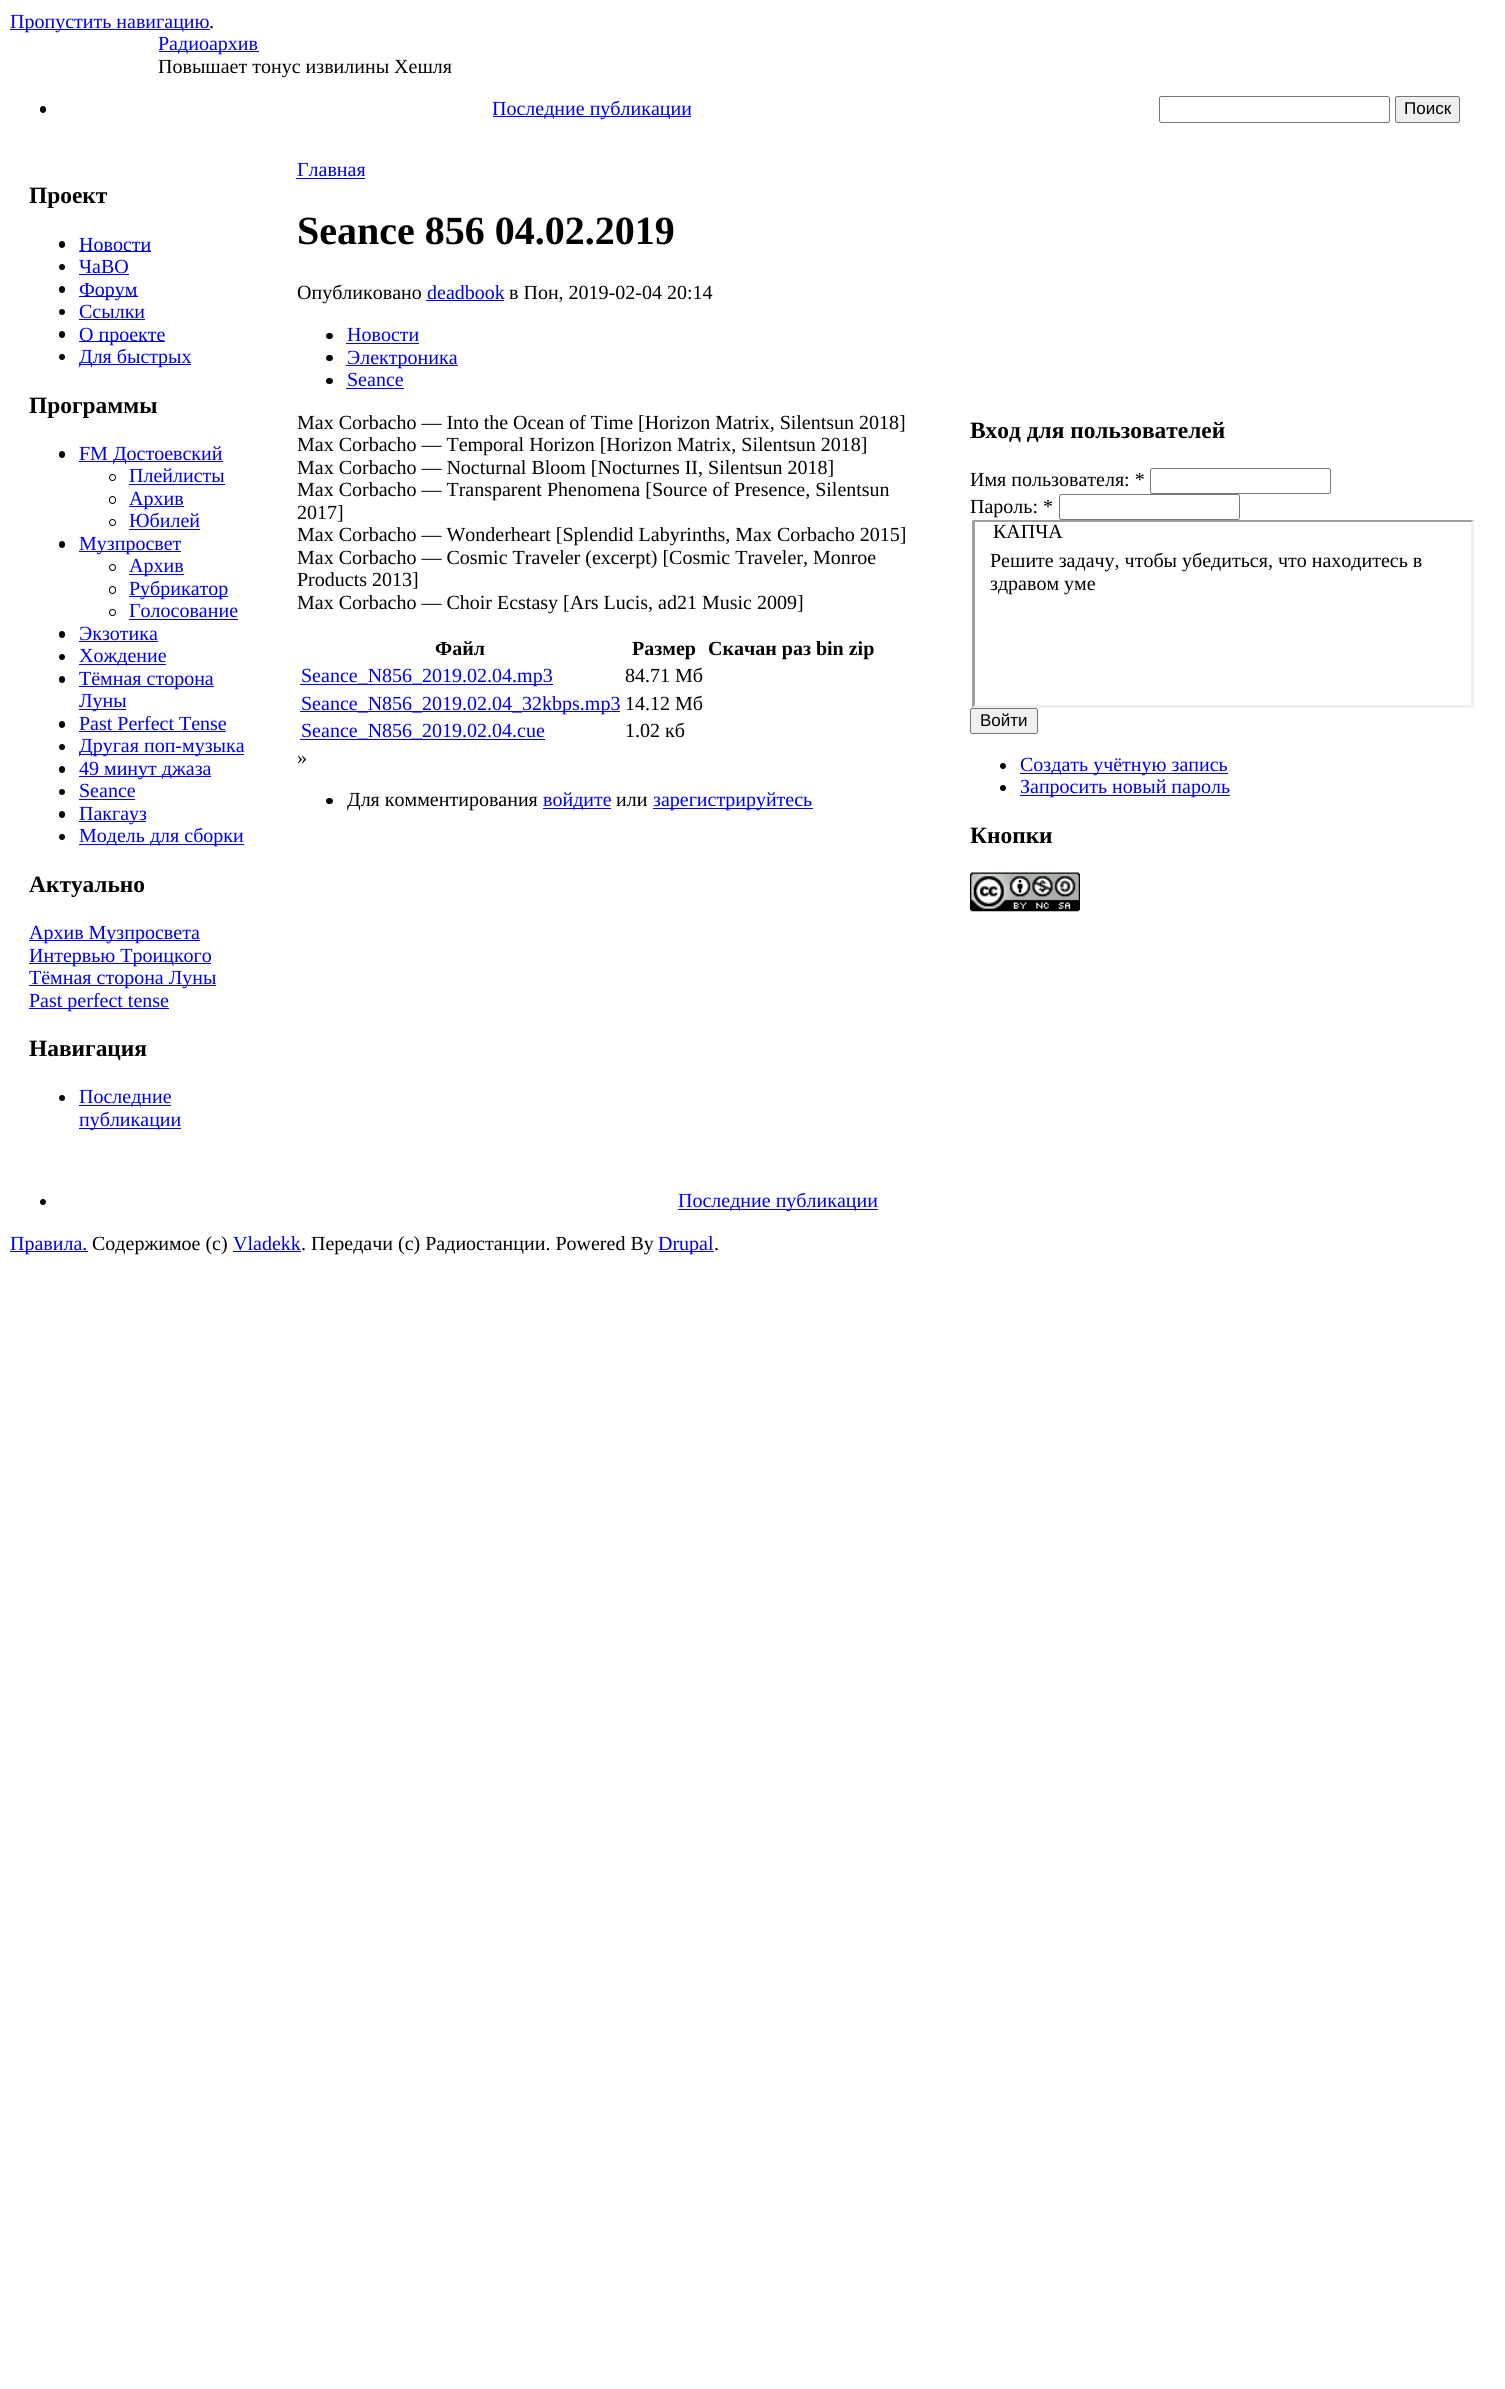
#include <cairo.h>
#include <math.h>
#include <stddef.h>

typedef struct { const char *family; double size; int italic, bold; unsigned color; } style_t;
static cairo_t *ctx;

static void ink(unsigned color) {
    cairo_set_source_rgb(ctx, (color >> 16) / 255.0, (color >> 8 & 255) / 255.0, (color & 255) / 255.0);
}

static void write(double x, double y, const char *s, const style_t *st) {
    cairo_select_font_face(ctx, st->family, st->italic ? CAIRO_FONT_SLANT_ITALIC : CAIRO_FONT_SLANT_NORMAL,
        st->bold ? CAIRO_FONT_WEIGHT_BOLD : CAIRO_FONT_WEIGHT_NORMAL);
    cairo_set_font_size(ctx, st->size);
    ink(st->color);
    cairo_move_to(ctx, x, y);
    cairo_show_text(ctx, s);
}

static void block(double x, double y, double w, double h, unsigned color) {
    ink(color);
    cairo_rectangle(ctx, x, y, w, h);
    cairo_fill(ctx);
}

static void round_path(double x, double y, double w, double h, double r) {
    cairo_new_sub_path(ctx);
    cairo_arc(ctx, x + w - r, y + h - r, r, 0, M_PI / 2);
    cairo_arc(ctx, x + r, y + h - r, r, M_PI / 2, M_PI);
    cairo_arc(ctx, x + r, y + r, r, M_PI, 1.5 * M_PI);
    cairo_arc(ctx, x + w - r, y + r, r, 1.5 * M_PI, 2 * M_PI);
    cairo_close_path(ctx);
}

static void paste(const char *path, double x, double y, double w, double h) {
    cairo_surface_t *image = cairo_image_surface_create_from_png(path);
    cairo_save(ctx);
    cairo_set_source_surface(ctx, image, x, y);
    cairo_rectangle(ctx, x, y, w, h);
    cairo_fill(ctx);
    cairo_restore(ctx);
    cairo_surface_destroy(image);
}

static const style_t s1 = {"Liberation Serif", 20, 0, 0, 0x0000ee};
static const style_t s2 = {"Liberation Serif", 20, 0, 0, 0x000000};
static const style_t s3 = {"Liberation Sans", 17, 0, 0, 0x000000};
static const style_t s4 = {"Liberation Serif", 23.4, 0, 1, 0x000000};
static const style_t s5 = {"Liberation Serif", 40, 0, 1, 0x000000};
static const style_t s6 = {"Liberation Serif", 20, 0, 1, 0x000000};

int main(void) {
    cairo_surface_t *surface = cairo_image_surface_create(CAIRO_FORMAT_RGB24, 1505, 2389);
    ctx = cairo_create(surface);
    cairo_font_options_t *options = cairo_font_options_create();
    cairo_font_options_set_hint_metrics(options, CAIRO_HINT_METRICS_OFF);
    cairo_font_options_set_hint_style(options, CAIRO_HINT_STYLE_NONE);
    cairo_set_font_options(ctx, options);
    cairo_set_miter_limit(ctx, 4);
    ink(0xffffff);
    cairo_paint(ctx);
    block(10, 29, 200, 1, 0x0000ee);
    write(10, 28, "Пропустить навигацию", &s1);
    write(209, 28, ".", &s2);
    block(159, 51, 100, 1, 0x0000ee);
    write(158, 50, "Радиоархив", &s1);
    write(158, 73, "Повышает тонус извилины Хешля", &s2);
    round_path(40, 106, 6, 7, 3);
    cairo_fill(ctx);
    block(493, 116, 198, 1, 0x0000ee);
    write(492, 115, "Последние публикации", &s1);
    round_path(1159.5, 96.5, 230, 26, 2);
    ink(0x767676);
    cairo_set_line_width(ctx, 1);
    cairo_stroke(ctx);
    ink(0xefefef);
    round_path(1395.5, 96.5, 64, 26, 2);
    cairo_fill_preserve(ctx);
    ink(0x767676);
    cairo_stroke(ctx);
    write(1404, 114, "Поиск", &s3);
    write(29, 203, "Проект", &s4);
    round_path(59, 241, 6, 7, 3);
    cairo_fill(ctx);
    block(79, 251, 72, 1, 0x0000ee);
    write(79, 251, "Новости", &s1);
    ink(0x000000);
    cairo_new_path(ctx);
    cairo_arc(ctx, 62, 267, 3, 0, 2 * M_PI);
    cairo_fill(ctx);
    write(79, 273, "ЧаВО", &s1);
    block(79, 274, 50, 1, 0x0000ee);
    ink(0x000000);
    round_path(59, 286, 6, 7, 3);
    cairo_fill(ctx);
    block(79, 296, 59, 1, 0x0000ee);
    write(79, 296, "Форум", &s1);
    ink(0x000000);
    cairo_new_path(ctx);
    cairo_arc(ctx, 62, 312, 3, 0, 2 * M_PI);
    cairo_fill(ctx);
    write(79, 318, "Ссылки", &s1);
    block(79, 319, 66, 1, 0x0000ee);
    ink(0x000000);
    round_path(59, 331, 6, 7, 3);
    cairo_fill(ctx);
    block(79, 341, 86, 1, 0x0000ee);
    write(79, 341, "О проекте", &s1);
    ink(0x000000);
    cairo_new_path(ctx);
    cairo_arc(ctx, 62, 357, 3, 0, 2 * M_PI);
    cairo_fill(ctx);
    block(79, 364, 112, 1, 0x0000ee);
    write(79, 363, "Для быстрых", &s1);
    write(29, 413, "Программы", &s4);
    round_path(59, 451, 6, 7, 3);
    cairo_fill(ctx);
    block(79, 461, 144, 1, 0x0000ee);
    write(79, 460, "FM Достоевский", &s1);
    cairo_new_path(ctx);
    cairo_arc(ctx, 112.5, 477.5, 3, 0, 2 * M_PI);
    ink(0x000000);
    cairo_stroke(ctx);
    write(129, 482, "Плейлисты", &s1);
    block(129, 484, 96, 1, 0x0000ee);
    round_path(109.5, 496.5, 6, 7, 3);
    ink(0x000000);
    cairo_stroke(ctx);
    block(129, 506, 55, 1, 0x0000ee);
    write(129, 505, "Архив", &s1);
    cairo_new_path(ctx);
    cairo_arc(ctx, 112.5, 522.5, 3, 0, 2 * M_PI);
    ink(0x000000);
    cairo_stroke(ctx);
    write(129, 527, "Юбилей", &s1);
    block(129, 529, 71, 1, 0x0000ee);
    ink(0x000000);
    round_path(59, 541, 6, 7, 3);
    cairo_fill(ctx);
    block(79, 551, 102, 1, 0x0000ee);
    write(79, 550, "Музпросвет", &s1);
    cairo_new_path(ctx);
    cairo_arc(ctx, 112.5, 567.5, 3, 0, 2 * M_PI);
    ink(0x000000);
    cairo_stroke(ctx);
    block(129, 574, 55, 1, 0x0000ee);
    write(129, 572, "Архив", &s1);
    round_path(109.5, 586.5, 6, 7, 3);
    ink(0x000000);
    cairo_stroke(ctx);
    block(129, 596, 99, 1, 0x0000ee);
    write(129, 595, "Рубрикатор", &s1);
    cairo_new_path(ctx);
    cairo_arc(ctx, 112.5, 612.5, 3, 0, 2 * M_PI);
    ink(0x000000);
    cairo_stroke(ctx);
    write(129, 617, "Голосование", &s1);
    block(129, 619, 109, 1, 0x0000ee);
    ink(0x000000);
    round_path(59, 631, 6, 7, 3);
    cairo_fill(ctx);
    write(79, 640, "Экзотика", &s1);
    block(79, 641, 79, 1, 0x0000ee);
    ink(0x000000);
    cairo_new_path(ctx);
    cairo_arc(ctx, 62, 657, 3, 0, 2 * M_PI);
    cairo_fill(ctx);
    block(79, 664, 87, 1, 0x0000ee);
    write(79, 662, "Хождение", &s1);
    ink(0x000000);
    round_path(59, 676, 6, 7, 3);
    cairo_fill(ctx);
    block(79, 686, 135, 1, 0x0000ee);
    write(79, 685, "Тёмная сторона", &s1);
    block(79, 709, 47, 1, 0x0000ee);
    write(79, 707, "Луны", &s1);
    ink(0x000000);
    round_path(59, 721, 6, 7, 3);
    cairo_fill(ctx);
    write(79, 730, "Past Perfect Tense", &s1);
    block(79, 731, 147, 1, 0x0000ee);
    ink(0x000000);
    cairo_new_path(ctx);
    cairo_arc(ctx, 62, 747, 3, 0, 2 * M_PI);
    cairo_fill(ctx);
    block(79, 754, 165, 1, 0x0000ee);
    write(79, 752, "Другая поп-музыка", &s1);
    ink(0x000000);
    round_path(59, 766, 6, 7, 3);
    cairo_fill(ctx);
    block(79, 776, 132, 1, 0x0000ee);
    write(79, 775, "49 минут джаза", &s1);
    ink(0x000000);
    cairo_new_path(ctx);
    cairo_arc(ctx, 62, 792, 3, 0, 2 * M_PI);
    cairo_fill(ctx);
    write(79, 797, "Seance", &s1);
    block(79, 799, 56, 1, 0x0000ee);
    ink(0x000000);
    round_path(59, 811, 6, 7, 3);
    cairo_fill(ctx);
    block(79, 821, 67, 1, 0x0000ee);
    write(79, 820, "Пакгауз", &s1);
    ink(0x000000);
    cairo_new_path(ctx);
    cairo_arc(ctx, 62, 837, 3, 0, 2 * M_PI);
    cairo_fill(ctx);
    block(79, 844, 165, 1, 0x0000ee);
    write(79, 842, "Модель для сборки", &s1);
    write(29, 892, "Актуально", &s4);
    block(29, 940, 171, 1, 0x0000ee);
    write(29, 939, "Архив Музпросвета", &s1);
    block(29, 963, 182, 1, 0x0000ee);
    write(29, 962, "Интервью Троицкого", &s1);
    block(29, 985, 187, 1, 0x0000ee);
    write(29, 984, "Тёмная сторона Луны", &s1);
    block(29, 1008, 140, 1, 0x0000ee);
    write(29, 1007, "Past perfect tense", &s1);
    write(29, 1056, "Навигация", &s4);
    cairo_new_path(ctx);
    cairo_arc(ctx, 62, 1098, 3, 0, 2 * M_PI);
    cairo_fill(ctx);
    block(79, 1105, 92, 1, 0x0000ee);
    write(79, 1103, "Последние", &s1);
    block(79, 1128, 102, 1, 0x0000ee);
    write(79, 1126, "публикации", &s1);
    write(297, 176, "Главная", &s1);
    block(296, 178, 69, 1, 0x0000ee);
    write(297, 244, "Seance 856 04.02.2019", &s5);
    write(297, 299, "Опубликовано", &s2);
    write(427, 299, "deadbook", &s1);
    block(426, 300, 78, 1, 0x0000ee);
    write(509, 299, "в Пон, 2019-02-04 20:14", &s2);
    round_path(326, 333, 7, 6, 3);
    cairo_fill(ctx);
    write(347, 341, "Новости", &s1);
    block(346, 343, 73, 1, 0x0000ee);
    ink(0x000000);
    round_path(326, 355, 7, 6, 3);
    cairo_fill(ctx);
    block(346, 365, 112, 1, 0x0000ee);
    write(347, 364, "Электроника", &s1);
    ink(0x000000);
    round_path(326, 378, 7, 6, 3);
    cairo_fill(ctx);
    write(347, 386, "Seance", &s1);
    block(346, 388, 58, 1, 0x0000ee);
    write(297, 429, "Max Corbacho — Into the Ocean of Time [Horizon Matrix, Silentsun 2018]", &s2);
    write(297, 451, "Max Corbacho — Temporal Horizon [Horizon Matrix, Silentsun 2018]", &s2);
    write(297, 474, "Max Corbacho — Nocturnal Bloom [Nocturnes II, Silentsun 2018]", &s2);
    write(297, 496, "Max Corbacho — Transparent Phenomena [Source of Presence, Silentsun", &s2);
    write(297, 519, "2017]", &s2);
    write(297, 541, "Max Corbacho — Wonderheart [Splendid Labyrinths, Max Corbacho 2015]", &s2);
    write(297, 564, "Max Corbacho — Cosmic Traveler (excerpt) [Cosmic Traveler, Monroe", &s2);
    write(297, 586, "Products 2013]", &s2);
    write(297, 609, "Max Corbacho — Choir Ecstasy [Ars Lucis, ad21 Music 2009]", &s2);
    write(435, 655, "Файл", &s6);
    write(632, 655, "Размер", &s6);
    write(708, 655, "Скачан раз bin zip", &s6);
    block(300, 684, 253, 1, 0x0000ee);
    write(301, 682, "Seance_N856_2019.02.04.mp3", &s1);
    write(625, 682, "84.71 Мб", &s2);
    block(300, 711, 320, 1, 0x0000ee);
    write(301, 710, "Seance_N856_2019.02.04_32kbps.mp3", &s1);
    write(625, 710, "14.12 Мб", &s2);
    block(300, 739, 245, 1, 0x0000ee);
    write(301, 737, "Seance_N856_2019.02.04.cue", &s1);
    write(625, 737, "1.02 кб", &s2);
    write(297, 764, "»", &s2);
    round_path(326, 798, 7, 6, 3);
    cairo_fill(ctx);
    write(347, 806, "Для комментирования", &s2);
    block(543, 808, 68, 1, 0x0000ee);
    write(543, 806, "войдите", &s1);
    write(616, 806, "или", &s2);
    block(653, 808, 160, 1, 0x0000ee);
    write(653, 806, "зарегистрируйтесь", &s1);
    write(970, 438, "Вход для пользователей", &s4);
    write(970, 486, "Имя пользователя: *", &s2);
    round_path(1150.5, 468.5, 180, 25, 2);
    ink(0x767676);
    cairo_stroke(ctx);
    write(970, 513, "Пароль: *", &s2);
    round_path(1059.5, 494.5, 180, 25, 2);
    ink(0x767676);
    cairo_stroke(ctx);
    ink(0x9f9f9f);
    cairo_new_path(ctx);
    cairo_move_to(ctx, 972, 520);
    cairo_line_to(ctx, 1474, 520);
    cairo_line_to(ctx, 1471, 522);
    cairo_line_to(ctx, 975, 522);
    cairo_close_path(ctx);
    cairo_fill(ctx);
    ink(0xefefef);
    cairo_new_path(ctx);
    cairo_move_to(ctx, 1474, 520);
    cairo_line_to(ctx, 1474, 708);
    cairo_line_to(ctx, 1471, 705);
    cairo_line_to(ctx, 1471, 522);
    cairo_close_path(ctx);
    cairo_fill(ctx);
    cairo_new_path(ctx);
    cairo_move_to(ctx, 1474, 708);
    cairo_line_to(ctx, 972, 708);
    cairo_line_to(ctx, 975, 705);
    cairo_line_to(ctx, 1471, 705);
    cairo_close_path(ctx);
    cairo_fill(ctx);
    ink(0x9f9f9f);
    cairo_new_path(ctx);
    cairo_move_to(ctx, 972, 708);
    cairo_line_to(ctx, 972, 520);
    cairo_line_to(ctx, 975, 522);
    cairo_line_to(ctx, 975, 705);
    cairo_close_path(ctx);
    cairo_fill(ctx);
    write(993, 538, "КАПЧА", &s2);
    write(990, 567, "Решите задачу, чтобы убедиться, что находитесь в", &s2);
    write(990, 590, "здравом уме", &s2);
    ink(0xefefef);
    round_path(970.5, 708.5, 67, 25, 2);
    cairo_fill_preserve(ctx);
    ink(0x767676);
    cairo_stroke(ctx);
    write(980, 726, "Войти", &s3);
    cairo_new_path(ctx);
    cairo_arc(ctx, 1003, 766, 3, 0, 2 * M_PI);
    cairo_fill(ctx);
    block(1020, 773, 208, 1, 0x0000ee);
    write(1020, 771, "Создать учётную запись", &s1);
    ink(0x000000);
    cairo_new_path(ctx);
    cairo_arc(ctx, 1003, 788, 3, 0, 2 * M_PI);
    cairo_fill(ctx);
    block(1020, 795, 210, 1, 0x0000ee);
    write(1020, 793, "Запросить новый пароль", &s1);
    write(970, 843, "Кнопки", &s4);
    paste("pic1.png", 970, 872, 110, 40);
    cairo_arc(ctx, 43, 1202, 3, 0, 2 * M_PI);
    cairo_fill(ctx);
    block(678, 1209, 200, 1, 0x0000ee);
    write(678, 1207, "Последние публикации", &s1);
    block(10, 1251, 78, 1, 0x0000ee);
    write(10, 1250, "Правила.", &s1);
    write(92, 1250, "Содержимое (с)", &s2);
    write(233, 1250, "Vladekk", &s1);
    block(233, 1251, 68, 1, 0x0000ee);
    write(301, 1250, ". Передачи (с) Радиостанции. Powered By", &s2);
    block(659, 1251, 55, 1, 0x0000ee);
    write(658, 1250, "Drupal", &s1);
    write(714, 1250, ".", &s2);
    cairo_surface_write_to_png(surface, "screenshot.png");
    cairo_font_options_destroy(options);
    cairo_destroy(ctx);
    cairo_surface_destroy(surface);
    return 0;
}
